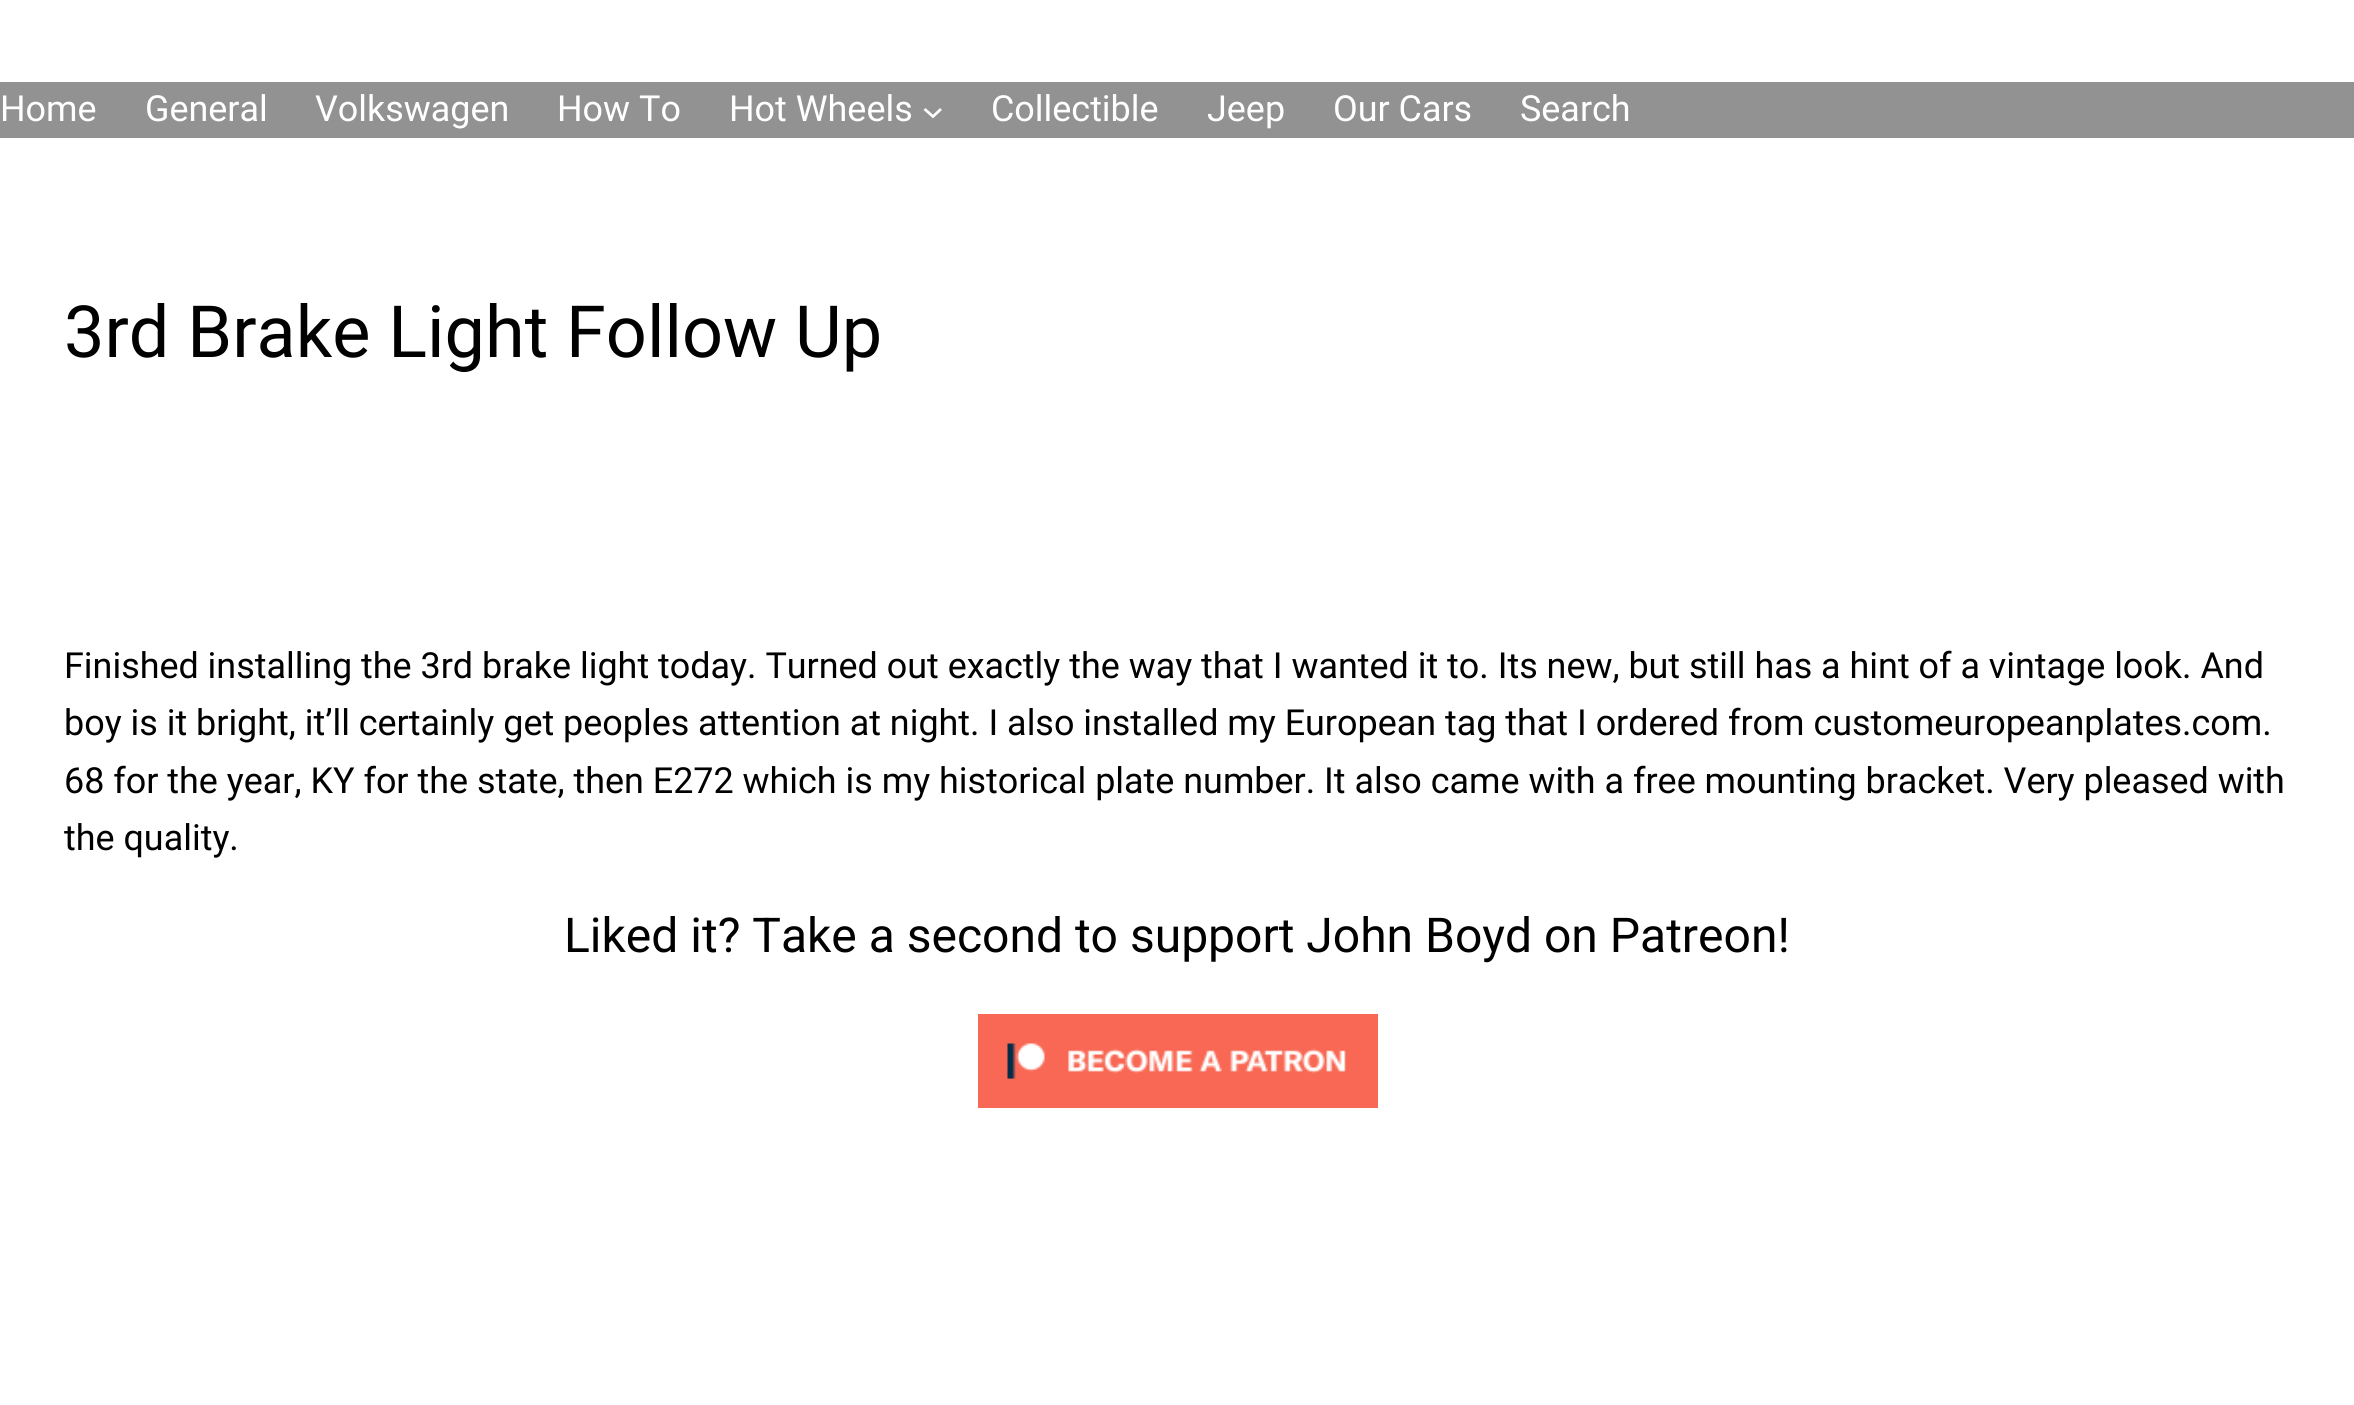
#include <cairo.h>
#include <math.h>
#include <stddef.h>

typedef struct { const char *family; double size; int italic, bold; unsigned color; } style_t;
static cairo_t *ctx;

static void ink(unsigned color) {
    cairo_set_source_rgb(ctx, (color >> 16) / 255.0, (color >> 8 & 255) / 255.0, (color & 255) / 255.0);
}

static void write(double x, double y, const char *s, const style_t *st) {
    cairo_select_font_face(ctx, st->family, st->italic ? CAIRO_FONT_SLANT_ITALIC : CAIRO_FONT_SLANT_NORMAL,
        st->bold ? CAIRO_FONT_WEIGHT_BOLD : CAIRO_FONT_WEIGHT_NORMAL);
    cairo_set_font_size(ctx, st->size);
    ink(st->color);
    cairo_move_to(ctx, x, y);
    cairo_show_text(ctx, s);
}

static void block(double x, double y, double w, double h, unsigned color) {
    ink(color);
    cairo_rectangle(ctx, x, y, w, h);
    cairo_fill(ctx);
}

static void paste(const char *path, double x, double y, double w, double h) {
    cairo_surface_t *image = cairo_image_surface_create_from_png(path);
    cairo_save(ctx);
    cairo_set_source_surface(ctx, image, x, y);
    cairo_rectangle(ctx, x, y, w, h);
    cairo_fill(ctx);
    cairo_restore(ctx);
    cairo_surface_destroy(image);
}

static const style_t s1 = {"Roboto", 35.9, 0, 0, 0xffffff};
static const style_t s2 = {"Roboto", 72, 0, 0, 0x000000};
static const style_t s3 = {"Roboto", 35.9, 0, 0, 0x000000};
static const style_t s4 = {"Roboto", 48, 0, 0, 0x000000};

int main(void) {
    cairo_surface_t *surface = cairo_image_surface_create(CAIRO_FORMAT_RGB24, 2354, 1405);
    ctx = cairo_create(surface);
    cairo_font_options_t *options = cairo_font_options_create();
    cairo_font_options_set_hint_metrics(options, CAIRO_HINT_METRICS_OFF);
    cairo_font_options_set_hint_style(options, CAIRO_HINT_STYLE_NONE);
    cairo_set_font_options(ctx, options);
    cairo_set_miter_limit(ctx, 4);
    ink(0xffffff);
    cairo_paint(ctx);
    block(0, 82, 2354, 56, 0x929292);
    write(0, 121, "Home", &s1);
    write(145, 121, "General", &s1);
    write(315, 121, "Volkswagen", &s1);
    write(557, 121, "How To", &s1);
    write(729, 121, "Hot Wheels", &s1);
    cairo_new_path(ctx);
    cairo_move_to(ctx, 924.5, 109);
    cairo_line_to(ctx, 933, 116.5);
    cairo_line_to(ctx, 941, 109);
    cairo_set_line_width(ctx, 2.7);
    cairo_stroke(ctx);
    write(991, 121, "Collectible", &s1);
    write(1207, 121, "Jeep", &s1);
    write(1333, 121, "Our Cars", &s1);
    write(1520, 121, "Search", &s1);
    write(64, 357, "3rd Brake Light Follow Up", &s2);
    write(64, 678, "Finished installing the 3rd brake light today. Turned out exactly the way that I wanted it to. Its new, but still has a hint of a vintage look. And", &s3);
    write(64, 735, "boy is it bright, it’ll certainly get peoples attention at night. I also installed my European tag that I ordered from customeuropeanplates.com.", &s3);
    write(64, 793, "68 for the year, KY for the state, then E272 which is my historical plate number. It also came with a free mounting bracket. Very pleased with", &s3);
    write(64, 850, "the quality.", &s3);
    write(564, 952, "Liked it? Take a second to support John Boyd on Patreon!", &s4);
    paste("pic1.png", 978, 1014, 400, 94);
    cairo_surface_write_to_png(surface, "screenshot.png");
    cairo_font_options_destroy(options);
    cairo_destroy(ctx);
    cairo_surface_destroy(surface);
    return 0;
}
